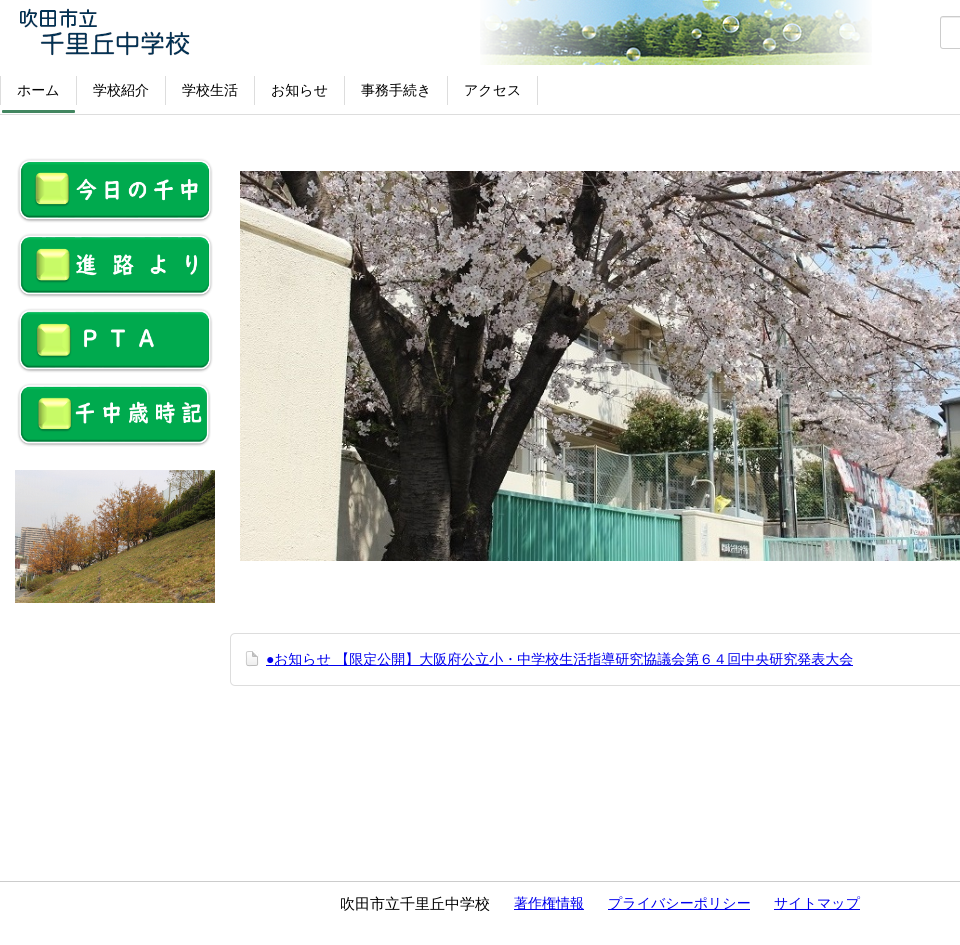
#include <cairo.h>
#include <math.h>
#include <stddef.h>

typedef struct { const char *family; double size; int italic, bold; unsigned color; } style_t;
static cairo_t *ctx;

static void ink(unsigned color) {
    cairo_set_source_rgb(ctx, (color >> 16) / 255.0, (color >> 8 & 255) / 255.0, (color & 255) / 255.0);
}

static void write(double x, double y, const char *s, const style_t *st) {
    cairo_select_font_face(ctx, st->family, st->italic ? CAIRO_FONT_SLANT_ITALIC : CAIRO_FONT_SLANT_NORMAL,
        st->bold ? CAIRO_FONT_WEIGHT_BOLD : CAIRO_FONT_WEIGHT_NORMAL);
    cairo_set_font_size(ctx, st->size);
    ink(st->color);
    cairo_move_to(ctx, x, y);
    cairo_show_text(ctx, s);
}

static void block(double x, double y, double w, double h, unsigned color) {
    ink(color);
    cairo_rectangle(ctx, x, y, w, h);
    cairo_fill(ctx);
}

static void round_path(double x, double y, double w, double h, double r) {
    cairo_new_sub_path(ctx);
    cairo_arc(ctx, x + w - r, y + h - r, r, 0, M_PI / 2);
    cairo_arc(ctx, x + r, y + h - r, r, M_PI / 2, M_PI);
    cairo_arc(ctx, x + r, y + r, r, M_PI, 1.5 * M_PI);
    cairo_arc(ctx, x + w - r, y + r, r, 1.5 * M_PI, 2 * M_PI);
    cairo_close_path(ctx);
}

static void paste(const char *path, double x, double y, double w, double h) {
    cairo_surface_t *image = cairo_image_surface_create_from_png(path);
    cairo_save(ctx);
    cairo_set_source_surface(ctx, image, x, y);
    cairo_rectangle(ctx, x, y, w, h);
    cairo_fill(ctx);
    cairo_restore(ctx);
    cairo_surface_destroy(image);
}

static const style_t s1 = {"WenQuanYi Zen Hei Medium", 14, 0, 0, 0x000000};
static const style_t s2 = {"Liberation Sans", 14, 0, 0, 0x0000ee};
static const style_t s3 = {"WenQuanYi Zen Hei Medium", 14, 0, 0, 0x0000ee};
static const style_t s4 = {"WenQuanYi Zen Hei Medium", 15, 0, 0, 0x000000};

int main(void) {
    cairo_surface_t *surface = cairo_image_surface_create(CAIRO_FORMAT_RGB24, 960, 945);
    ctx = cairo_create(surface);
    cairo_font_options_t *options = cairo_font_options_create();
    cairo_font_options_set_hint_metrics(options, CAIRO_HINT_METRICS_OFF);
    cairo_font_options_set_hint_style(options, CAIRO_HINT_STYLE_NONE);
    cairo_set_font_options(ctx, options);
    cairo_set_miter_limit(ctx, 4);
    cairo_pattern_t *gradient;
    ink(0xffffff);
    cairo_paint(ctx);
    paste("pic1.png", 480, 0, 392, 65);
    paste("pic2.png", 20, 8, 170, 48);
    ink(0xececec);
    cairo_new_path(ctx);
    cairo_move_to(ctx, 943, 18);
    cairo_line_to(ctx, 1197, 18);
    cairo_curve_to(ctx, 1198, 18, 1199, 19, 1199, 20);
    cairo_line_to(ctx, 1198, 17);
    cairo_line_to(ctx, 943, 17);
    cairo_curve_to(ctx, 941, 17, 941, 19, 941, 20);
    cairo_curve_to(ctx, 941, 19, 942, 18, 943, 18);
    cairo_close_path(ctx);
    cairo_fill(ctx);
    round_path(940.5, 16.5, 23, 32, 2.5);
    ink(0xcccccc);
    cairo_set_line_width(ctx, 1);
    cairo_stroke(ctx);
    block(0, 114, 960, 1, 0xdddddd);
    block(0, 76, 1, 29, 0xdddddd);
    write(17, 95, "ホーム", &s1);
    ink(0x428660);
    round_path(2, 110, 73, 3, 1);
    cairo_fill(ctx);
    block(76, 76, 1, 29, 0xdddddd);
    write(93, 95, "学校紹介", &s1);
    block(165, 76, 1, 29, 0xdddddd);
    write(182, 95, "学校生活", &s1);
    block(254, 76, 1, 29, 0xdddddd);
    write(271, 95, "お知らせ", &s1);
    block(344, 76, 1, 29, 0xdddddd);
    write(361, 95, "事務手続き", &s1);
    block(447, 76, 1, 29, 0xdddddd);
    write(464, 95, "アクセス", &s1);
    block(537, 76, 1, 29, 0xdddddd);
    paste("pic3.png", 17, 158, 196, 65);
    paste("pic4.png", 17, 233, 196, 65);
    paste("pic5.png", 17, 308, 196, 65);
    paste("pic6.png", 17, 383, 194, 64);
    paste("pic7.png", 15, 470, 200, 133);
    paste("pic8.png", 240, 171, 720, 390);
    round_path(230.5, 633.5, 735, 52, 4.5);
    cairo_stroke(ctx);
    cairo_save(ctx);
    round_path(246, 651, 12, 15, 2);
    cairo_clip(ctx);
    gradient = cairo_pattern_create_linear(252, 652, 252, 665);
    cairo_pattern_add_color_stop_rgba(gradient, 0, 1, 1, 1, 1);
    cairo_pattern_add_color_stop_rgba(gradient, 1, 0.933, 0.933, 0.933, 1);
    cairo_set_source(ctx, gradient);
    cairo_pattern_destroy(gradient);
    cairo_rectangle(ctx, 246, 652, 12, 13);
    cairo_fill(ctx);
    cairo_restore(ctx);
    cairo_new_path(ctx);
    cairo_move_to(ctx, 257, 652);
    cairo_curve_to(ctx, 258, 653, 257.5, 657, 257.5, 658.5);
    cairo_curve_to(ctx, 257.5, 666, 259, 665.5, 252, 665.5);
    cairo_curve_to(ctx, 251, 665.5, 248, 666, 247, 665);
    ink(0xbbbbbb);
    cairo_stroke(ctx);
    cairo_new_path(ctx);
    cairo_move_to(ctx, 247, 665);
    cairo_curve_to(ctx, 246, 664, 246.5, 660, 246.5, 658.5);
    cairo_curve_to(ctx, 246.5, 651, 245, 651.5, 252, 651.5);
    cairo_curve_to(ctx, 253, 651.5, 256, 651, 257, 652);
    ink(0xcccccc);
    cairo_stroke(ctx);
    ink(0xffffff);
    cairo_new_path(ctx);
    cairo_move_to(ctx, 252, 651);
    cairo_line_to(ctx, 258, 651);
    cairo_line_to(ctx, 255, 654);
    cairo_close_path(ctx);
    cairo_fill(ctx);
    cairo_new_path(ctx);
    cairo_move_to(ctx, 258, 651);
    cairo_line_to(ctx, 258, 657);
    cairo_line_to(ctx, 255, 654);
    cairo_close_path(ctx);
    cairo_fill(ctx);
    ink(0xbbbbbb);
    cairo_new_path(ctx);
    cairo_move_to(ctx, 258, 657);
    cairo_line_to(ctx, 252, 657);
    cairo_line_to(ctx, 255, 654);
    cairo_close_path(ctx);
    cairo_fill(ctx);
    cairo_new_path(ctx);
    cairo_move_to(ctx, 252, 657);
    cairo_line_to(ctx, 252, 651);
    cairo_line_to(ctx, 255, 654);
    cairo_close_path(ctx);
    cairo_fill(ctx);
    write(266, 664, "●", &s2);
    block(266, 665, 587, 1, 0x0000ee);
    write(274, 664, "お知らせ 【限定公開】大阪府公立小・中学校生活指導研究協議会第６４回中央研究発表大会", &s3);
    block(0, 881, 960, 1, 0xcccccc);
    write(340, 909, "吹田市立千里丘中学校", &s4);
    block(514, 909, 70, 1, 0x0000ee);
    write(514, 908, "著作権情報", &s3);
    block(608, 909, 142, 1, 0x0000ee);
    write(608, 908, "プライバシーポリシー", &s3);
    block(774, 909, 86, 1, 0x0000ee);
    write(774, 908, "サイトマップ", &s3);
    cairo_surface_write_to_png(surface, "screenshot.png");
    cairo_font_options_destroy(options);
    cairo_destroy(ctx);
    cairo_surface_destroy(surface);
    return 0;
}
